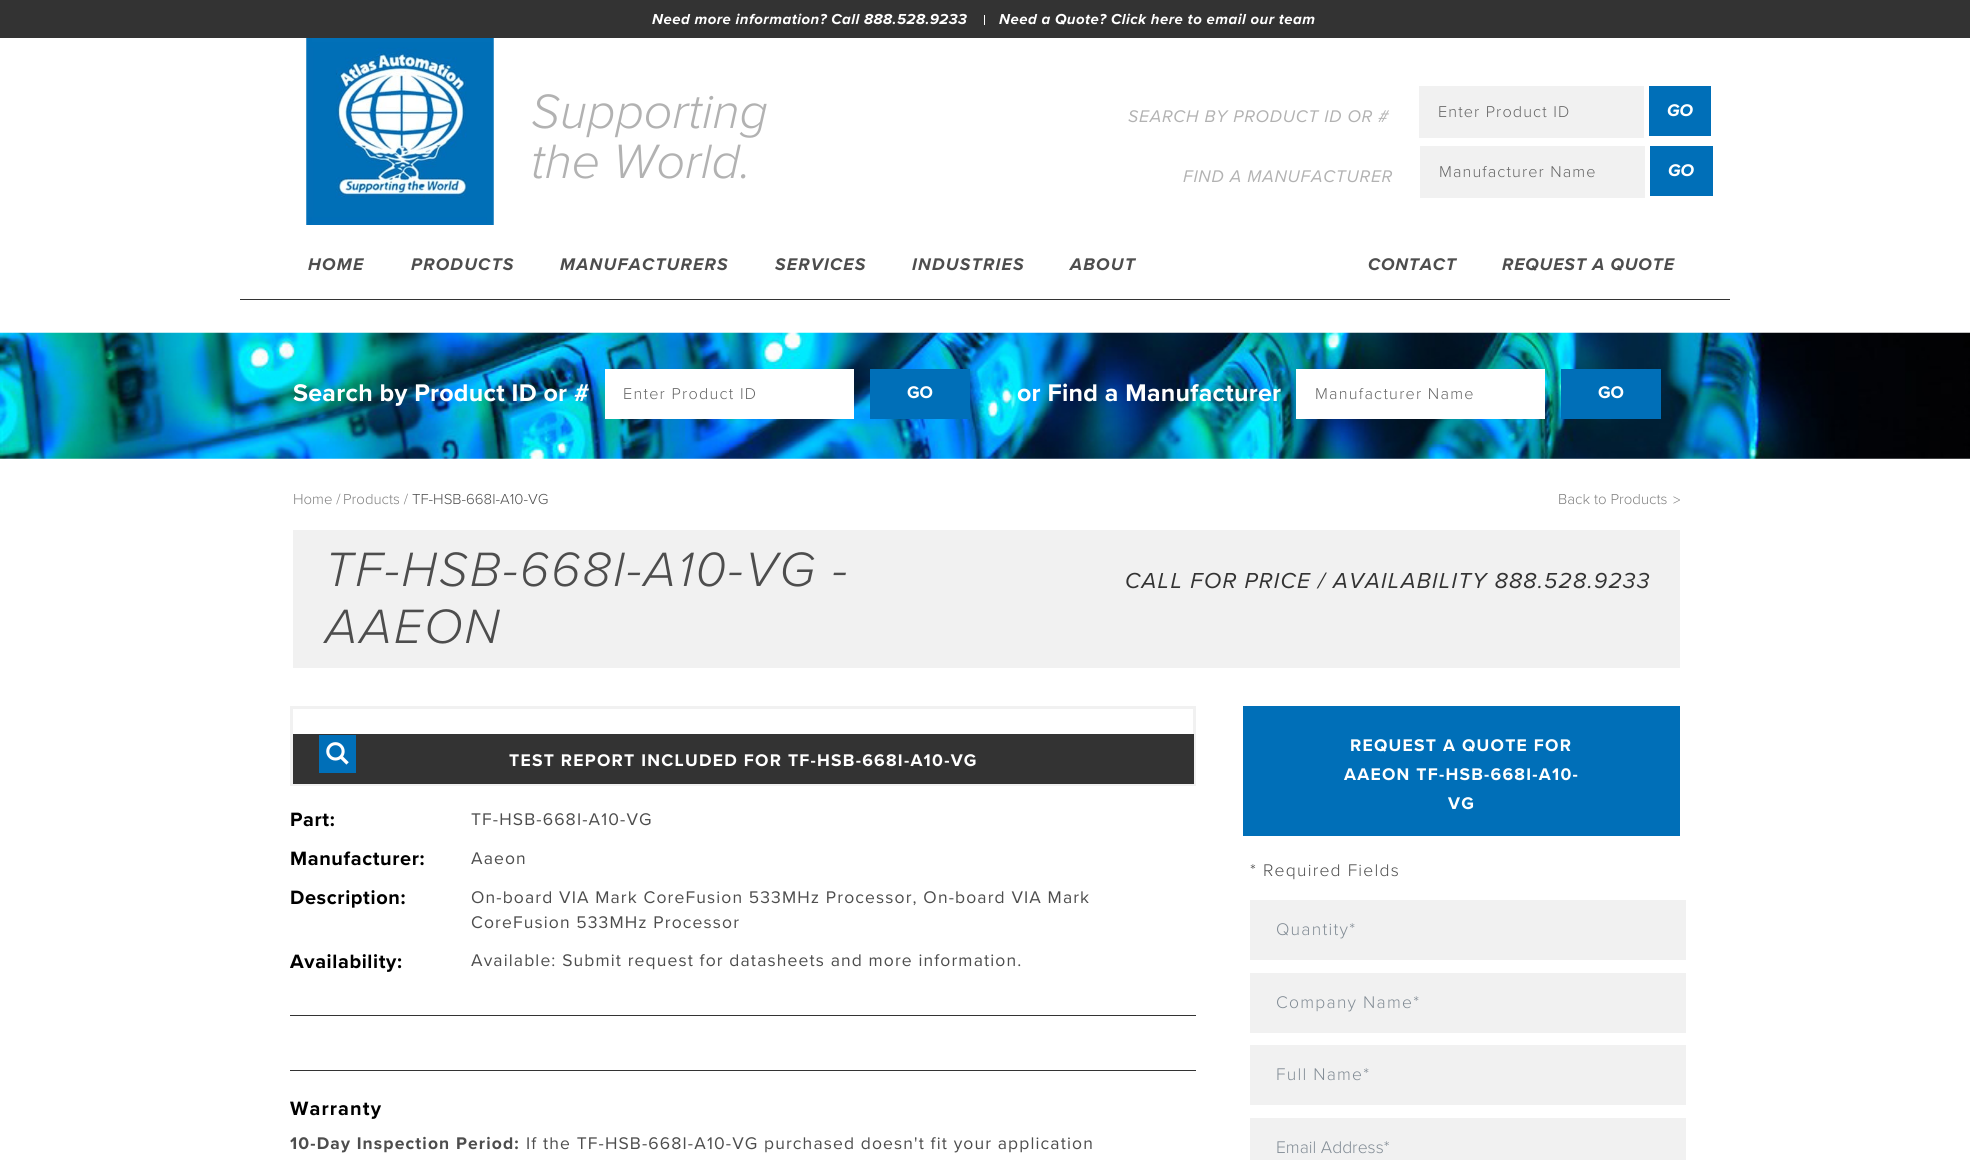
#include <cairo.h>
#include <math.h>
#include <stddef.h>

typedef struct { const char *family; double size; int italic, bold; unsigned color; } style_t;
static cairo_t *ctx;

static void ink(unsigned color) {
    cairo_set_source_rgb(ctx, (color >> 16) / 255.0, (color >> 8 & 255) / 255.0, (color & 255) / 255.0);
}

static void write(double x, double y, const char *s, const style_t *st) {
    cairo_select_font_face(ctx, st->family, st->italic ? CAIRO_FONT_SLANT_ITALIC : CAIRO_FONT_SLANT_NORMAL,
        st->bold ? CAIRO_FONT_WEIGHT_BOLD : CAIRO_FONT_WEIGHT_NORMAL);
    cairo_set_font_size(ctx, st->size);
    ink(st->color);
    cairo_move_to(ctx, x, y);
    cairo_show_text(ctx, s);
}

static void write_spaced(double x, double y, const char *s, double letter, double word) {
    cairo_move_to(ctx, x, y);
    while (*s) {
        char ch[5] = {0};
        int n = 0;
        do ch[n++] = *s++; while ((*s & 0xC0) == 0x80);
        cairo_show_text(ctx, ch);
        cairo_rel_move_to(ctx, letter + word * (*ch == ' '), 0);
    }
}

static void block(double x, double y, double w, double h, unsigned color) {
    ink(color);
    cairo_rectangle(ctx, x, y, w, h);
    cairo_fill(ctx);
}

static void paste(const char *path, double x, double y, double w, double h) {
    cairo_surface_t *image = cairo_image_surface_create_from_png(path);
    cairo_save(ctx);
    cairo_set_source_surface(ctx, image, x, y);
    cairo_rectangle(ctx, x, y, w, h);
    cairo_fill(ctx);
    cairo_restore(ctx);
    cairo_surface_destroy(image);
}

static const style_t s1 = {"Proxima Nova Light", 50, 1, 0, 0xb2b2b2};
static const style_t s2 = {"Proxima Nova", 17.5, 1, 1, 0xffffff};
static const style_t s3 = {"Proxima Nova", 17.5, 0, 1, 0xffffff};
static const style_t s4 = {"Proxima Nova Light", 15, 0, 0, 0x808080};
static const style_t s5 = {"Proxima Nova Light", 15, 0, 0, 0x4d4d4d};
static const style_t s6 = {"Proxima Nova Light", 17.5, 0, 0, 0x828c95};

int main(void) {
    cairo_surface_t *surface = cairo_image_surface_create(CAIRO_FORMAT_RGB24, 1970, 1160);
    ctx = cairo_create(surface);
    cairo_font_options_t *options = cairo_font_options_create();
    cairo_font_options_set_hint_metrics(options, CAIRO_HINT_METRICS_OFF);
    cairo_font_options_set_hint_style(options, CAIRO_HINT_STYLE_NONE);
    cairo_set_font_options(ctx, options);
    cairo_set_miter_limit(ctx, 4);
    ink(0xffffff);
    cairo_paint(ctx);
    block(240, 299, 1490, 1, 0x333333);
    block(0, 0, 1970, 38, 0x333333);
    cairo_select_font_face(ctx, "Proxima Nova", CAIRO_FONT_SLANT_ITALIC, CAIRO_FONT_WEIGHT_BOLD);
    cairo_set_font_size(ctx, 15);
    ink(0xffffff);
    write_spaced(652, 24, "Need more information? Call 888.528.9233", 0.45, 0);
    block(984, 15, 1, 10, 0xffffff);
    write_spaced(999, 24, "Need a Quote? Click here to email our team", 0.45, 0);
    paste("pic1.png", 306, 38, 188, 187);
    write(531, 128, "Supporting", &s1);
    write(531, 178, "the World.", &s1);
    cairo_select_font_face(ctx, "Proxima Nova", CAIRO_FONT_SLANT_ITALIC, CAIRO_FONT_WEIGHT_NORMAL);
    cairo_set_font_size(ctx, 17.5);
    write_spaced(1128, 122, "SEARCH BY PRODUCT ID OR #", 0.75, 0);
    block(1419, 86, 225, 52, 0xf1f1f1);
    cairo_select_font_face(ctx, "Proxima Nova Light", CAIRO_FONT_SLANT_NORMAL, CAIRO_FONT_WEIGHT_NORMAL);
    cairo_set_font_size(ctx, 16.25);
    ink(0x666666);
    write_spaced(1438, 117, "Enter Product ID", 1.12, 0);
    block(1649, 86, 62, 50, 0x006fb8);
    write(1667, 116, "GO", &s2);
    cairo_select_font_face(ctx, "Proxima Nova", CAIRO_FONT_SLANT_ITALIC, CAIRO_FONT_WEIGHT_NORMAL);
    ink(0xb2b2b2);
    write_spaced(1183, 182, "FIND A MANUFACTURER", 0.75, 0);
    block(1420, 146, 225, 52, 0xf1f1f1);
    cairo_select_font_face(ctx, "Proxima Nova Light", CAIRO_FONT_SLANT_NORMAL, CAIRO_FONT_WEIGHT_NORMAL);
    cairo_set_font_size(ctx, 16.25);
    ink(0x666666);
    write_spaced(1439, 177, "Manufacturer Name", 1.12, 0);
    block(1650, 146, 63, 50, 0x006fb8);
    write(1668, 176, "GO", &s2);
    ink(0x4d4d4d);
    write_spaced(308, 270, "HOME", 1.25, 0);
    write_spaced(411, 270, "PRODUCTS", 1.25, 0);
    write_spaced(560, 270, "MANUFACTURERS", 1.25, 0);
    write_spaced(775, 270, "SERVICES", 1.25, 0);
    write_spaced(912, 270, "INDUSTRIES", 1.25, 0);
    write_spaced(1070, 270, "ABOUT", 1.25, 0);
    write_spaced(1368, 270, "CONTACT", 0.9, 0);
    write_spaced(1502, 270, "REQUEST A QUOTE", 0.9, 0);
    paste("pic2.png", 0, 332, 1970, 127);
    cairo_select_font_face(ctx, "Proxima Nova", CAIRO_FONT_SLANT_NORMAL, CAIRO_FONT_WEIGHT_BOLD);
    cairo_set_font_size(ctx, 25);
    ink(0xffffff);
    write_spaced(293, 401, "Search by Product ID or #", 0.25, 0);
    block(605, 369, 249, 50, 0xffffff);
    cairo_select_font_face(ctx, "Proxima Nova Light", CAIRO_FONT_SLANT_NORMAL, CAIRO_FONT_WEIGHT_NORMAL);
    cairo_set_font_size(ctx, 16.25);
    ink(0x666666);
    write_spaced(623, 399, "Enter Product ID", 1.25, 0);
    block(870, 369, 100, 50, 0x006fb8);
    write(907, 398, "GO", &s3);
    cairo_set_font_size(ctx, 25);
    write_spaced(1017, 401, "or Find a Manufacturer", 0.25, 0);
    block(1296, 369, 249, 50, 0xffffff);
    cairo_select_font_face(ctx, "Proxima Nova Light", CAIRO_FONT_SLANT_NORMAL, CAIRO_FONT_WEIGHT_NORMAL);
    cairo_set_font_size(ctx, 16.25);
    ink(0x666666);
    write_spaced(1315, 399, "Manufacturer Name", 1.25, 0);
    block(1561, 369, 100, 50, 0x006fb8);
    write(1598, 398, "GO", &s3);
    write(293, 504, "Home /", &s4);
    write(343, 504, "Products /", &s4);
    write(412, 504, "TF-HSB-668I-A10-VG", &s5);
    write(1558, 504, "Back to Products", &s4);
    write(1673, 505, ">", &s4);
    block(293, 530, 1387, 138, 0xf1f1f1);
    cairo_select_font_face(ctx, "Proxima Nova Light", CAIRO_FONT_SLANT_ITALIC, CAIRO_FONT_WEIGHT_NORMAL);
    cairo_set_font_size(ctx, 50);
    ink(0x4d4d4d);
    write_spaced(325, 586, "TF-HSB-668I-A10-VG -", 2.1, 0);
    write_spaced(325, 643, "AAEON", 2.1, 0);
    cairo_select_font_face(ctx, "Proxima Nova", CAIRO_FONT_SLANT_ITALIC, CAIRO_FONT_WEIGHT_NORMAL);
    cairo_set_font_size(ctx, 22.5);
    ink(0x333333);
    write_spaced(1125, 588, "CALL FOR PRICE / AVAILABILITY 888.528.9233", 1.25, 0);
    cairo_rectangle(ctx, 291.5, 707.5, 903, 77);
    ink(0xf1f1f1);
    cairo_set_line_width(ctx, 3);
    cairo_stroke(ctx);
    block(293, 734, 901, 50, 0x333333);
    block(319, 735, 37, 38, 0x006fb8);
    paste("pic3.png", 326, 742, 23, 23);
    cairo_select_font_face(ctx, "Proxima Nova", CAIRO_FONT_SLANT_NORMAL, CAIRO_FONT_WEIGHT_BOLD);
    cairo_set_font_size(ctx, 17.5);
    ink(0xffffff);
    write_spaced(509, 766, "TEST REPORT INCLUDED FOR TF-HSB-668I-A10-VG", 1.25, 0);
    block(290, 1015, 906, 1, 0x333333);
    cairo_set_font_size(ctx, 20);
    ink(0x000000);
    write_spaced(290, 826, "Part:", 0.6, 0);
    cairo_select_font_face(ctx, "Proxima Nova", CAIRO_FONT_SLANT_NORMAL, CAIRO_FONT_WEIGHT_NORMAL);
    cairo_set_font_size(ctx, 17.5);
    ink(0x4d4d4d);
    write_spaced(471, 825, "TF-HSB-668I-A10-VG", 1.12, 0);
    cairo_select_font_face(ctx, "Proxima Nova", CAIRO_FONT_SLANT_NORMAL, CAIRO_FONT_WEIGHT_BOLD);
    cairo_set_font_size(ctx, 20);
    ink(0x000000);
    write_spaced(290, 865, "Manufacturer:", 0.6, 0);
    cairo_select_font_face(ctx, "Proxima Nova", CAIRO_FONT_SLANT_NORMAL, CAIRO_FONT_WEIGHT_NORMAL);
    cairo_set_font_size(ctx, 17.5);
    ink(0x4d4d4d);
    write_spaced(471, 864, "Aaeon", 1.12, 0);
    cairo_select_font_face(ctx, "Proxima Nova", CAIRO_FONT_SLANT_NORMAL, CAIRO_FONT_WEIGHT_BOLD);
    cairo_set_font_size(ctx, 20);
    ink(0x000000);
    write_spaced(290, 904, "Description:", 0.6, 0);
    cairo_select_font_face(ctx, "Proxima Nova", CAIRO_FONT_SLANT_NORMAL, CAIRO_FONT_WEIGHT_NORMAL);
    cairo_set_font_size(ctx, 17.5);
    ink(0x4d4d4d);
    write_spaced(471, 903, "On-board VIA Mark CoreFusion 533MHz Processor, On-board VIA Mark", 1.12, 0);
    write_spaced(471, 928, "CoreFusion 533MHz Processor", 1.12, 0);
    cairo_select_font_face(ctx, "Proxima Nova", CAIRO_FONT_SLANT_NORMAL, CAIRO_FONT_WEIGHT_BOLD);
    cairo_set_font_size(ctx, 20);
    ink(0x000000);
    write_spaced(290, 968, "Availability:", 0.6, 0);
    cairo_select_font_face(ctx, "Proxima Nova", CAIRO_FONT_SLANT_NORMAL, CAIRO_FONT_WEIGHT_NORMAL);
    cairo_set_font_size(ctx, 17.5);
    ink(0x4d4d4d);
    write_spaced(471, 966, "Available: Submit request for datasheets and more information.", 1.12, 0);
    block(290, 1070, 906, 1, 0x333333);
    cairo_select_font_face(ctx, "Proxima Nova", CAIRO_FONT_SLANT_NORMAL, CAIRO_FONT_WEIGHT_BOLD);
    cairo_set_font_size(ctx, 20);
    ink(0x000000);
    write_spaced(290, 1115, "Warranty", 1.12, 0);
    cairo_set_font_size(ctx, 17.5);
    ink(0x4d4d4d);
    write_spaced(290, 1149, "10-Day Inspection Period:", 1.12, 0);
    cairo_select_font_face(ctx, "Proxima Nova", CAIRO_FONT_SLANT_NORMAL, CAIRO_FONT_WEIGHT_NORMAL);
    write_spaced(526, 1149, "If the TF-HSB-668I-A10-VG purchased doesn't fit your application", 1.12, 0);
    block(1243, 706, 437, 130, 0x006fb8);
    cairo_select_font_face(ctx, "Proxima Nova", CAIRO_FONT_SLANT_NORMAL, CAIRO_FONT_WEIGHT_BOLD);
    ink(0xffffff);
    write_spaced(1350, 751, "REQUEST A QUOTE FOR", 1.25, 0);
    write_spaced(1344, 780, "AAEON TF-HSB-668I-A10-", 1.25, 0);
    write_spaced(1448, 809, "VG", 1.25, 0);
    cairo_select_font_face(ctx, "Proxima Nova Light", CAIRO_FONT_SLANT_NORMAL, CAIRO_FONT_WEIGHT_NORMAL);
    ink(0x4d4d4d);
    write_spaced(1250, 876, "* Required Fields", 1.25, 0);
    block(1250, 900, 436, 60, 0xf1f1f1);
    ink(0x828c95);
    write_spaced(1276, 935, "Quantity*", 1.25, 0);
    block(1250, 973, 436, 60, 0xf1f1f1);
    ink(0x828c95);
    write_spaced(1276, 1008, "Company Name*", 1.25, 0);
    block(1250, 1045, 436, 60, 0xf1f1f1);
    ink(0x828c95);
    write_spaced(1276, 1080, "Full Name*", 1.25, 0);
    block(1250, 1118, 436, 42, 0xf1f1f1);
    write(1276, 1153, "Email Address*", &s6);
    cairo_surface_write_to_png(surface, "screenshot.png");
    cairo_font_options_destroy(options);
    cairo_destroy(ctx);
    cairo_surface_destroy(surface);
    return 0;
}
